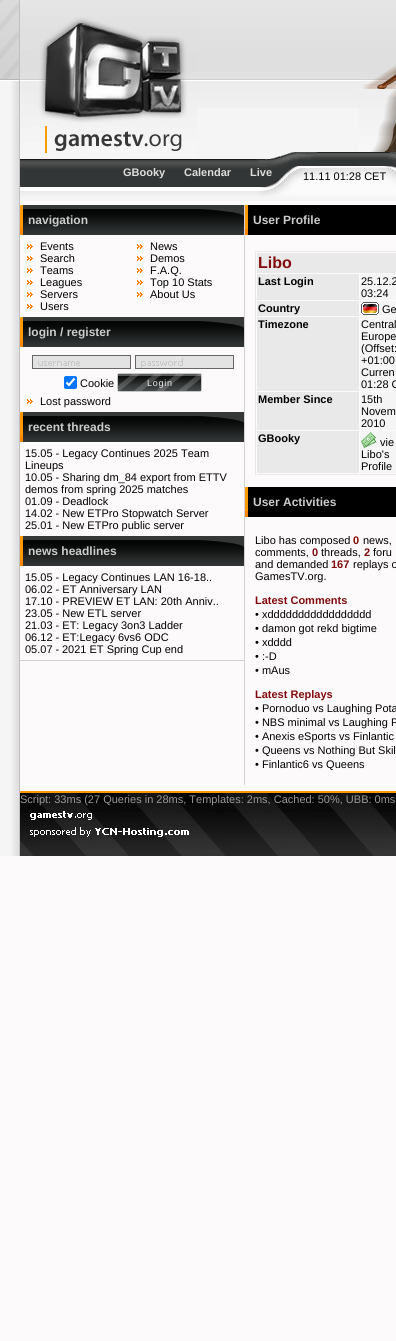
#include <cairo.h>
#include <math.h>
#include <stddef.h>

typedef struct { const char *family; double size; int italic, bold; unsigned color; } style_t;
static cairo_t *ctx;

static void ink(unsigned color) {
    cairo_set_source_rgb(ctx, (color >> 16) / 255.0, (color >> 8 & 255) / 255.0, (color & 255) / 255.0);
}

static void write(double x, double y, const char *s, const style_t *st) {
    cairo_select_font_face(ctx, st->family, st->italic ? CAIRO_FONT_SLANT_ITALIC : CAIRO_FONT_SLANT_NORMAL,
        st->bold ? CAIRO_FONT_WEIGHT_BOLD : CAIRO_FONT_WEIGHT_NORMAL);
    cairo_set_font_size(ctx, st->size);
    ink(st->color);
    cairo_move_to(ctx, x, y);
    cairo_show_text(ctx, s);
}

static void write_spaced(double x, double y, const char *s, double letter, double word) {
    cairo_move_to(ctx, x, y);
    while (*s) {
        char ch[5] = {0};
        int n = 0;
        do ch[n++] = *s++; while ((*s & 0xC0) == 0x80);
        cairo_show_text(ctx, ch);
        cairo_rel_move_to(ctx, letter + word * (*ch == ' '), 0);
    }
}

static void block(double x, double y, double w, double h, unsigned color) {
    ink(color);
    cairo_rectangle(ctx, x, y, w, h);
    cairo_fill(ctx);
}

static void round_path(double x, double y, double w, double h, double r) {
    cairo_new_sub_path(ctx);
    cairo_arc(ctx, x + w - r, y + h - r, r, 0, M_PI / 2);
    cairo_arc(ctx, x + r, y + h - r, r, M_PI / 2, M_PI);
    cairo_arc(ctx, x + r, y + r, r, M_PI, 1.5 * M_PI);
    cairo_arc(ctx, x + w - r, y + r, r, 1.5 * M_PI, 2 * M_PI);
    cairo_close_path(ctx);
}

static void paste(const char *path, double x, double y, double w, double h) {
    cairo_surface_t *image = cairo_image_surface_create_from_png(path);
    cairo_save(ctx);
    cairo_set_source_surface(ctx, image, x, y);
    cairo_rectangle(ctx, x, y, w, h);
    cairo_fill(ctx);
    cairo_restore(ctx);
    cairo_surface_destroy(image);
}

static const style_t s1 = {"Liberation Sans", 11, 0, 1, 0xdddddd};
static const style_t s2 = {"Liberation Sans", 11, 0, 0, 0x000000};
static const style_t s3 = {"Liberation Sans", 12, 0, 1, 0xcccccc};
static const style_t s4 = {"Liberation Sans", 16, 0, 1, 0x820a0c};
static const style_t s5 = {"Liberation Sans", 11, 0, 1, 0x000000};
static const style_t s6 = {"Liberation Sans", 11, 0, 1, 0x820a0c};
static const style_t s7 = {"Liberation Sans", 11, 0, 0, 0x999999};

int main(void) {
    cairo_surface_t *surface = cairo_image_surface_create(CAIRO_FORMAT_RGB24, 396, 1341);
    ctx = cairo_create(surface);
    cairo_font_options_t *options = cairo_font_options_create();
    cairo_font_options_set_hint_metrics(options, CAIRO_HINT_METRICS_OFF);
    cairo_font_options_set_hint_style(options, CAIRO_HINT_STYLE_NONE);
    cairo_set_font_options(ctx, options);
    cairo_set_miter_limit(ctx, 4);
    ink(0xfcfafb);
    cairo_paint(ctx);
    paste("pic1.png", 0, 0, 20, 160);
    block(197, 108, 162, 51, 0xf5f5f5);
    paste("pic2.png", 20, 0, 376, 108);
    paste("pic3.png", 20, 17, 177, 142);
    paste("pic4.png", 359, 64, 37, 88);
    paste("pic5.png", 0, 160, 20, 45);
    paste("pic6.png", 20, 159, 376, 42);
    write(123, 176, "GBooky", &s1);
    write(184, 176, "Calendar", &s1);
    paste("pic7.png", 256, 152, 140, 45);
    write(250, 176, "Live", &s1);
    write(303, 180, "11.11 01:28 CET", &s2);
    paste("pic8.png", 0, 205, 20, 586);
    block(244, 205, 1, 580, 0xd2d2d2);
    block(20, 660, 225, 1, 0xd2d2d2);
    paste("pic9.png", 20, 205, 224, 30);
    write(28, 224, "navigation", &s3);
    paste("pic10.png", 27, 244, 6, 5);
    write(40, 250, "Events", &s2);
    paste("pic10.png", 27, 256, 6, 5);
    write(40, 262, "Search", &s2);
    paste("pic10.png", 27, 268, 6, 5);
    write(40, 274, "Teams", &s2);
    paste("pic10.png", 27, 280, 6, 5);
    write(40, 286, "Leagues", &s2);
    paste("pic10.png", 27, 292, 6, 5);
    write(40, 298, "Servers", &s2);
    paste("pic10.png", 27, 304, 6, 5);
    write(40, 310, "Users", &s2);
    paste("pic10.png", 137, 244, 6, 5);
    write(150, 250, "News", &s2);
    paste("pic10.png", 137, 256, 6, 5);
    write(150, 262, "Demos", &s2);
    paste("pic10.png", 137, 268, 6, 5);
    write(150, 274, "F.A.Q.", &s2);
    paste("pic10.png", 137, 280, 6, 5);
    write(150, 286, "Top 10 Stats", &s2);
    paste("pic10.png", 137, 292, 6, 5);
    write(150, 298, "About Us", &s2);
    paste("pic9.png", 20, 317, 224, 30);
    write(28, 336, "login / register", &s3);
    block(33, 356, 97, 12, 0xe3e3e3);
    paste("pic11.png", 38, 361, 42, 5);
    cairo_rectangle(ctx, 32.5, 355.5, 98, 13);
    ink(0x666666);
    cairo_set_line_width(ctx, 1);
    cairo_stroke(ctx);
    block(136, 356, 97, 12, 0xe3e3e3);
    paste("pic12.png", 141, 358, 42, 10);
    cairo_rectangle(ctx, 135.5, 355.5, 98, 13);
    ink(0x666666);
    cairo_stroke(ctx);
    ink(0x0075ff);
    round_path(64, 376, 13, 13, 2);
    cairo_fill(ctx);
    cairo_new_path(ctx);
    cairo_move_to(ctx, 66.5, 382.5);
    cairo_line_to(ctx, 69, 385);
    cairo_line_to(ctx, 74.5, 378.5);
    ink(0xffffff);
    cairo_set_line_width(ctx, 2.1);
    cairo_stroke(ctx);
    write(80, 387, "Cookie", &s2);
    paste("pic13.png", 117, 373, 85, 19);
    cairo_set_font_size(ctx, 9);
    ink(0xeeeeee);
    write_spaced(147, 386, "Login", 0.75, 0);
    paste("pic10.png", 27, 399, 6, 5);
    write(40, 405, "Lost password", &s2);
    paste("pic9.png", 20, 412, 224, 30);
    write(28, 431, "recent threads", &s3);
    write(25, 457, "15.05 - Legacy Continues 2025 Team", &s2);
    write(25, 469, "Lineups", &s2);
    write(25, 481, "10.05 - Sharing dm_84 export from ETTV", &s2);
    write(25, 493, "demos from spring 2025 matches", &s2);
    write(25, 505, "01.09 - Deadlock", &s2);
    write(25, 517, "14.02 - New ETPro Stopwatch Server", &s2);
    write(25, 529, "25.01 - New ETPro public server", &s2);
    paste("pic9.png", 20, 536, 224, 30);
    write(28, 555, "news headlines", &s3);
    write(25, 581, "15.05 - Legacy Continues LAN 16-18..", &s2);
    write(25, 593, "06.02 - ET Anniversary LAN", &s2);
    write(25, 605, "17.10 - PREVIEW ET LAN: 20th Anniv..", &s2);
    write(25, 617, "23.05 - New ETL server", &s2);
    write(25, 629, "21.03 - ET: Legacy 3on3 Ladder", &s2);
    write(25, 641, "06.12 - ET:Legacy 6vs6 ODC", &s2);
    write(25, 653, "05.07 -", &s2);
    cairo_save(ctx);
    cairo_rectangle(ctx, 20, 566, 224, 89);
    cairo_clip(ctx);
    write(62, 653, "2021 ET Spring Cup end", &s2);
    cairo_restore(ctx);
    block(248, 205, 148, 30, 0x000000);
    paste("pic14.png", 245, 205, 3, 30);
    write(253, 224, "User Profile", &s3);
    cairo_rectangle(ctx, 255.5, 251.5, 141, 223);
    ink(0xe9e9e9);
    cairo_set_line_width(ctx, 1);
    cairo_stroke(ctx);
    block(257, 253, 139, 20, 0xe9e9e9);
    write(258, 268, "Libo", &s4);
    block(257, 274, 102, 26, 0xe9e9e9);
    write(258, 285, "Last Login", &s5);
    block(360, 274, 36, 26, 0xf5f5f5);
    write(361, 285, "25.12.2", &s2);
    write(361, 297, "03:24", &s2);
    block(257, 301, 102, 15, 0xe9e9e9);
    write(258, 312, "Country", &s5);
    block(360, 301, 36, 15, 0xf5f5f5);
    paste("pic15.png", 361, 302, 18, 13);
    write(382, 313, "Ge", &s2);
    block(257, 317, 102, 74, 0xe9e9e9);
    write(258, 328, "Timezone", &s5);
    block(360, 317, 36, 74, 0xf5f5f5);
    write(361, 328, "Central", &s2);
    write(361, 340, "Europe", &s2);
    write(361, 352, "(Offset:", &s2);
    write(361, 364, "+01:00", &s2);
    write(361, 376, "Curren", &s2);
    write(361, 388, "01:28 C", &s2);
    block(257, 392, 102, 38, 0xe9e9e9);
    write(258, 403, "Member Since", &s5);
    block(360, 392, 36, 38, 0xf5f5f5);
    write(361, 403, "15th", &s2);
    write(361, 415, "Novem", &s2);
    write(361, 427, "2010", &s2);
    block(257, 431, 102, 42, 0xe9e9e9);
    write(258, 442, "GBooky", &s5);
    block(360, 431, 36, 42, 0xf5f5f5);
    paste("pic16.png", 361, 432, 16, 16);
    write(380, 446, "vie", &s2);
    write(361, 458, "Libo's", &s2);
    write(361, 470, "Profile", &s2);
    block(248, 487, 148, 30, 0x000000);
    paste("pic14.png", 245, 487, 3, 30);
    write(253, 506, "User Activities", &s3);
    write(255, 544, "Libo has composed", &s2);
    write(353, 544, "0", &s6);
    write(363, 544, "news,", &s2);
    write(255, 556, "comments,", &s2);
    write(312, 556, "0", &s6);
    write(321, 556, "threads,", &s2);
    write(364, 556, "2", &s6);
    write(373, 556, "foru", &s2);
    write(255, 568, "and demanded", &s2);
    write(331, 568, "167", &s6);
    write(353, 568, "replays o", &s2);
    write(255, 580, "GamesTV.org.", &s2);
    write(255, 604, "Latest Comments", &s6);
    write(255, 618, "• xddddddddddddddddd", &s2);
    write(255, 632, "• damon got rekd bigtime", &s2);
    write(255, 646, "• xdddd", &s2);
    write(255, 660, "• :-D", &s2);
    write(255, 674, "• mAus", &s2);
    write(255, 698, "Latest Replays", &s6);
    write(255, 712, "• Pornoduo vs Laughing Pota", &s2);
    write(255, 726, "• NBS minimal vs Laughing P", &s2);
    write(255, 740, "• Anexis eSports vs Finlantic", &s2);
    write(255, 754, "• Queens vs Nothing But Skil", &s2);
    write(255, 768, "• Finlantic6 vs Queens", &s2);
    paste("pic17.png", 0, 791, 20, 65);
    paste("pic18.png", 20, 793, 376, 63);
    block(20, 791, 376, 2, 0xff9501);
    write(20, 803, "Script: 33ms (27 Queries in 28ms, Templates: 2ms, Cached: 50%, UBB: 0ms", &s7);
    cairo_surface_write_to_png(surface, "screenshot.png");
    cairo_font_options_destroy(options);
    cairo_destroy(ctx);
    cairo_surface_destroy(surface);
    return 0;
}
